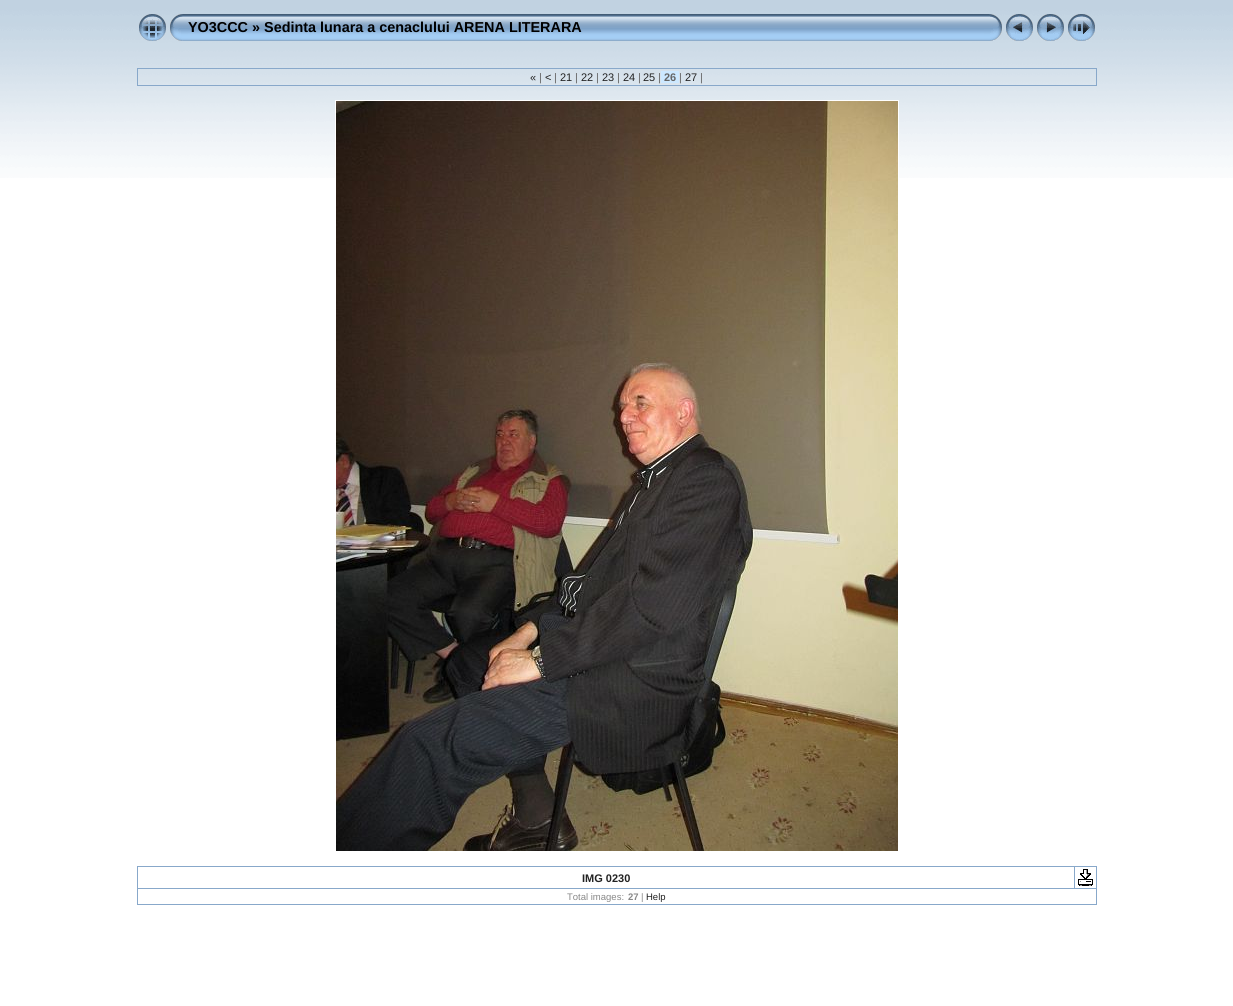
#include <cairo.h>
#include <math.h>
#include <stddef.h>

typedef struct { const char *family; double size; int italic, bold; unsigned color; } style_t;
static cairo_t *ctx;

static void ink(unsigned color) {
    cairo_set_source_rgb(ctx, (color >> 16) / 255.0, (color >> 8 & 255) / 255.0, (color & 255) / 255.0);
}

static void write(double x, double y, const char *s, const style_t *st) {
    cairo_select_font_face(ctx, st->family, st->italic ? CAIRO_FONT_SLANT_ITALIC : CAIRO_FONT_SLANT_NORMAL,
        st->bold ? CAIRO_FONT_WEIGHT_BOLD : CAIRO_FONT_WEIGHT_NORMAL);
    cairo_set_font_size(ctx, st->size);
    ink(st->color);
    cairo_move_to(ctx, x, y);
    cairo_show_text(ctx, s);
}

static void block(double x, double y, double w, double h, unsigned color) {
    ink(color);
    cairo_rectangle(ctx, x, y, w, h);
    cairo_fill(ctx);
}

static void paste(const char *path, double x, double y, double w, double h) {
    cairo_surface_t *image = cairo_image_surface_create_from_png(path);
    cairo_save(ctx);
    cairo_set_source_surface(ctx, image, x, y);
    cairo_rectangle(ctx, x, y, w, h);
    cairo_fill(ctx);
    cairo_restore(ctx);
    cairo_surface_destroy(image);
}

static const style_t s1 = {"Liberation Sans", 14.4, 0, 1, 0x000000};
static const style_t s2 = {"Liberation Sans", 11, 0, 0, 0x222222};
static const style_t s3 = {"Liberation Sans", 11, 0, 0, 0x666666};
static const style_t s4 = {"Liberation Sans", 11, 0, 1, 0x666666};
static const style_t s5 = {"Liberation Sans", 11, 0, 1, 0x222222};
static const style_t s6 = {"Liberation Sans", 9.5, 0, 0, 0x888888};
static const style_t s7 = {"Liberation Sans", 9.5, 0, 1, 0x888888};
static const style_t s8 = {"Liberation Sans", 9.5, 0, 0, 0x222222};

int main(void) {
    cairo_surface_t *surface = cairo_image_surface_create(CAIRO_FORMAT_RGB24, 1233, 1006);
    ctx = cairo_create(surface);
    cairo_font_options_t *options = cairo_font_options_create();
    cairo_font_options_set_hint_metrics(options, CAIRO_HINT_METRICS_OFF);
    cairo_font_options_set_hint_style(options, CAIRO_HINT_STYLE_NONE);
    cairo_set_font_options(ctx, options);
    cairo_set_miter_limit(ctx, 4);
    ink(0xffffff);
    cairo_paint(ctx);
    paste("pic1.png", 0, 0, 1233, 178);
    paste("pic2.png", 139, 14, 27, 27);
    paste("pic3.png", 170, 14, 18, 27);
    paste("pic4.png", 188, 14, 796, 27);
    write(188, 32, "YO3CCC » Sedinta lunara a cenaclului ARENA LITERARA", &s1);
    paste("pic5.png", 984, 14, 18, 27);
    paste("pic6.png", 1006, 14, 27, 27);
    paste("pic7.png", 1037, 14, 27, 27);
    paste("pic8.png", 1068, 14, 27, 27);
    block(137, 68, 960, 1, 0x88a8ca);
    block(1096, 68, 1, 18, 0x88a8ca);
    block(137, 85, 960, 1, 0x88a8ca);
    block(137, 68, 1, 18, 0x88a8ca);
    write(530, 81, "«", &s2);
    write(539, 81, "|", &s3);
    write(545, 81, "<", &s2);
    write(554, 81, "|", &s3);
    write(560, 81, "21", &s2);
    write(575, 81, "|", &s3);
    write(581, 81, "22", &s2);
    write(596, 81, "|", &s3);
    write(602, 81, "23", &s2);
    write(617, 81, "|", &s3);
    write(623, 81, "24", &s2);
    write(638, 81, "|", &s3);
    write(643, 81, "25", &s2);
    write(658, 81, "|", &s3);
    block(661, 71, 18, 12, 0xcce8ff);
    write(664, 81, "26", &s4);
    write(679, 81, "|", &s3);
    write(685, 81, "27", &s2);
    write(700, 81, "|", &s3);
    cairo_rectangle(ctx, 335.5, 100.5, 563, 751);
    ink(0xffffff);
    cairo_set_line_width(ctx, 1);
    cairo_stroke(ctx);
    paste("pic9.png", 336, 101, 562, 750);
    block(137, 866, 960, 1, 0x88a8ca);
    block(1096, 866, 1, 39, 0x88a8ca);
    block(137, 904, 960, 1, 0x88a8ca);
    block(137, 866, 1, 39, 0x88a8ca);
    write(582, 882, "IMG 0230", &s5);
    block(137, 888, 960, 1, 0x88a8ca);
    block(1074, 866, 1, 23, 0x88a8ca);
    paste("pic10.png", 1078, 869, 15, 17);
    write(567, 900, "Total images:", &s6);
    write(628, 900, "27", &s7);
    write(641, 900, "|", &s6);
    write(646, 900, "Help", &s8);
    cairo_surface_write_to_png(surface, "screenshot.png");
    cairo_font_options_destroy(options);
    cairo_destroy(ctx);
    cairo_surface_destroy(surface);
    return 0;
}
